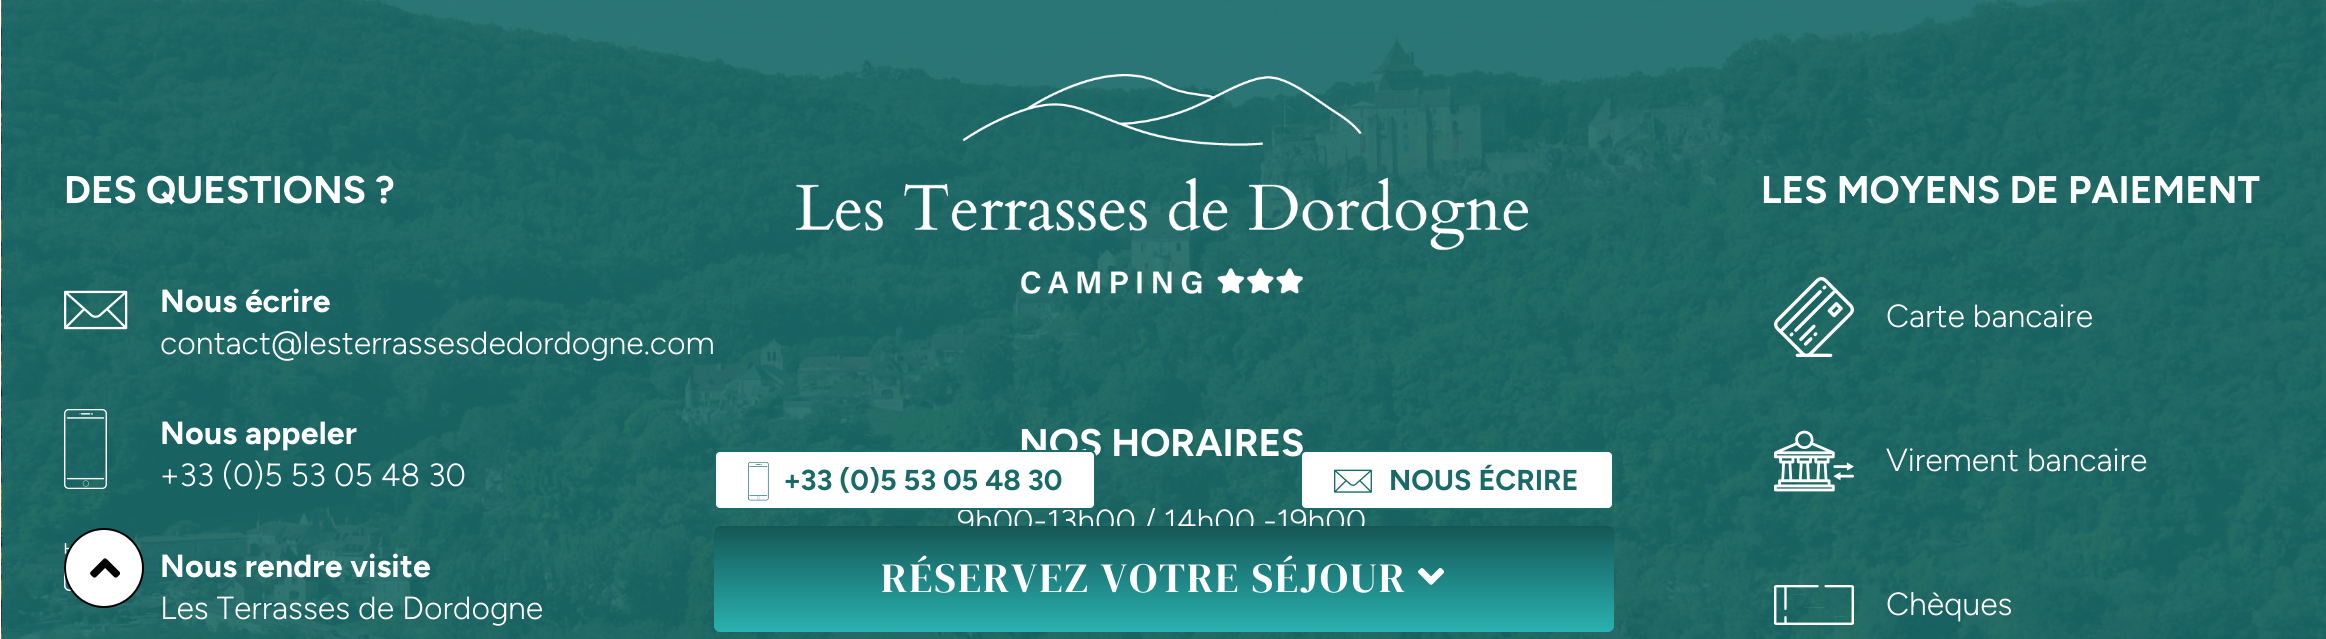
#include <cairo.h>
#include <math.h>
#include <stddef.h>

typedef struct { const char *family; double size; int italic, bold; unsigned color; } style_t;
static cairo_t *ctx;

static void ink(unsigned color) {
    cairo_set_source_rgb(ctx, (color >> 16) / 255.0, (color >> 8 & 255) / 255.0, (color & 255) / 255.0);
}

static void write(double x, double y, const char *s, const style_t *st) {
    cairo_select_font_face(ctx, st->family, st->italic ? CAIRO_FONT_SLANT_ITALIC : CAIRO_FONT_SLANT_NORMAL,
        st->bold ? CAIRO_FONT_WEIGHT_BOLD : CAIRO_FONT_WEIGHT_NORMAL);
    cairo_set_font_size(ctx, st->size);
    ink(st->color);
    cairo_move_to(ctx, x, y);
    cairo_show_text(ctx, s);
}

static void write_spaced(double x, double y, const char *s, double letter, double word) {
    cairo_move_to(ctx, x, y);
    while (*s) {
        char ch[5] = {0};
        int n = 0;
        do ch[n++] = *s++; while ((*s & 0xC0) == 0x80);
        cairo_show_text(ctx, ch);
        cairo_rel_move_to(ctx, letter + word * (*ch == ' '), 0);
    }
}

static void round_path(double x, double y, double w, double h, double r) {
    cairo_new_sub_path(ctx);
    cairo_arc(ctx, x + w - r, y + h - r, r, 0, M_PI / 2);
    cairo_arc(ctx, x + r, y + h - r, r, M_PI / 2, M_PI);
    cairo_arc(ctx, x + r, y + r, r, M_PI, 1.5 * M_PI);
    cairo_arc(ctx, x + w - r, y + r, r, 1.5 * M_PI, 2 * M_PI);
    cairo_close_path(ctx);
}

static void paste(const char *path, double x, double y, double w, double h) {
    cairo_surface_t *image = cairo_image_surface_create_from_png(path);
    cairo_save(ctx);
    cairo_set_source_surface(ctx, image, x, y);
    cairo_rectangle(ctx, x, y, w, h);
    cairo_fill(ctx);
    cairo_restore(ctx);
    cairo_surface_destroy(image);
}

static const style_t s1 = {"Figtree", 38.4, 0, 1, 0xffffff};
static const style_t s2 = {"Figtree", 32, 0, 1, 0xffffff};
static const style_t s3 = {"Figtree Light", 32, 0, 0, 0xffffff};
static const style_t s4 = {"Figtree", 28.75, 0, 1, 0x196a69};

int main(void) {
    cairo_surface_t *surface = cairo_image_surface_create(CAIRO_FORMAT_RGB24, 2326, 639);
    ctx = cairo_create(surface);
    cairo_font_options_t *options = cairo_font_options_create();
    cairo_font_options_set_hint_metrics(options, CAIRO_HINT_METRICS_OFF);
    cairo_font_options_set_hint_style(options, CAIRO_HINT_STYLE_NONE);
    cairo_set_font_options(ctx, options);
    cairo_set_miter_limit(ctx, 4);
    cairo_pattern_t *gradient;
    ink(0xffffff);
    cairo_paint(ctx);
    paste("pic1.png", 1, 0, 2325, 639);
    write(64, 203, "DES QUESTIONS ?", &s1);
    paste("pic2.png", 64, 290, 64, 40);
    write(160, 312, "Nous écrire", &s2);
    write(160, 354, "contact@lesterrassesdedordogne.com", &s3);
    paste("pic3.png", 64, 409, 43, 80);
    write(160, 444, "Nous appeler", &s2);
    write(160, 486, "+33 (0)5 53 05 48 30", &s3);
    paste("pic4.png", 64, 543, 8, 48);
    write(160, 577, "Nous rendre visite", &s2);
    write(160, 619, "Les Terrasses de Dordogne", &s3);
    paste("pic5.png", 796, 74, 732, 220);
    write(1019, 456, "NOS HORAIRES", &s1);
    write(957, 532, "9h00-13h00 / 14h00 -19h00", &s3);
    write(1761, 203, "LES MOYENS DE PAIEMENT", &s1);
    paste("pic6.png", 1774, 277, 80, 80);
    write(1886, 327, "Carte bancaire", &s3);
    paste("pic7.png", 1774, 430, 80, 62);
    write(1886, 471, "Virement bancaire", &s3);
    paste("pic8.png", 1774, 585, 80, 40);
    write(1886, 615, "Chèques", &s3);
    cairo_new_path(ctx);
    cairo_arc(ctx, 104, 568, 39, 0, 2 * M_PI);
    cairo_fill_preserve(ctx);
    ink(0x000000);
    cairo_stroke(ctx);
    paste("pic9.png", 90, 558, 31, 20);
    ink(0xffffff);
    round_path(715, 451, 380, 58, 5);
    cairo_fill_preserve(ctx);
    ink(0x196a69);
    cairo_stroke(ctx);
    paste("pic10.png", 748, 462, 21, 39);
    write(784, 490, "+33 (0)5 53 05 48 30", &s4);
    ink(0xffffff);
    round_path(1301, 451, 312, 58, 5);
    cairo_fill_preserve(ctx);
    ink(0x196a69);
    cairo_stroke(ctx);
    paste("pic11.png", 1334, 469, 38, 24);
    write(1389, 490, "NOUS ÉCRIRE", &s4);
    gradient = cairo_pattern_create_linear(1164, 526, 1164, 632);
    cairo_pattern_add_color_stop_rgba(gradient, 0, 0.082, 0.341, 0.337, 1);
    cairo_pattern_add_color_stop_rgba(gradient, 0.2, 0.098, 0.416, 0.412, 1);
    cairo_pattern_add_color_stop_rgba(gradient, 1, 0.161, 0.694, 0.69, 1);
    cairo_set_source(ctx, gradient);
    cairo_pattern_destroy(gradient);
    round_path(714, 526, 900, 106, 6);
    cairo_fill(ctx);
    cairo_select_font_face(ctx, "DM Serif Display", CAIRO_FONT_SLANT_NORMAL, CAIRO_FONT_WEIGHT_NORMAL);
    cairo_set_font_size(ctx, 41.6);
    ink(0xffffff);
    write_spaced(881, 592, "RÉSERVEZ VOTRE SÉJOUR", 2, 0);
    paste("pic12.png", 1418, 568, 27, 17);
    cairo_surface_write_to_png(surface, "screenshot.png");
    cairo_font_options_destroy(options);
    cairo_destroy(ctx);
    cairo_surface_destroy(surface);
    return 0;
}
